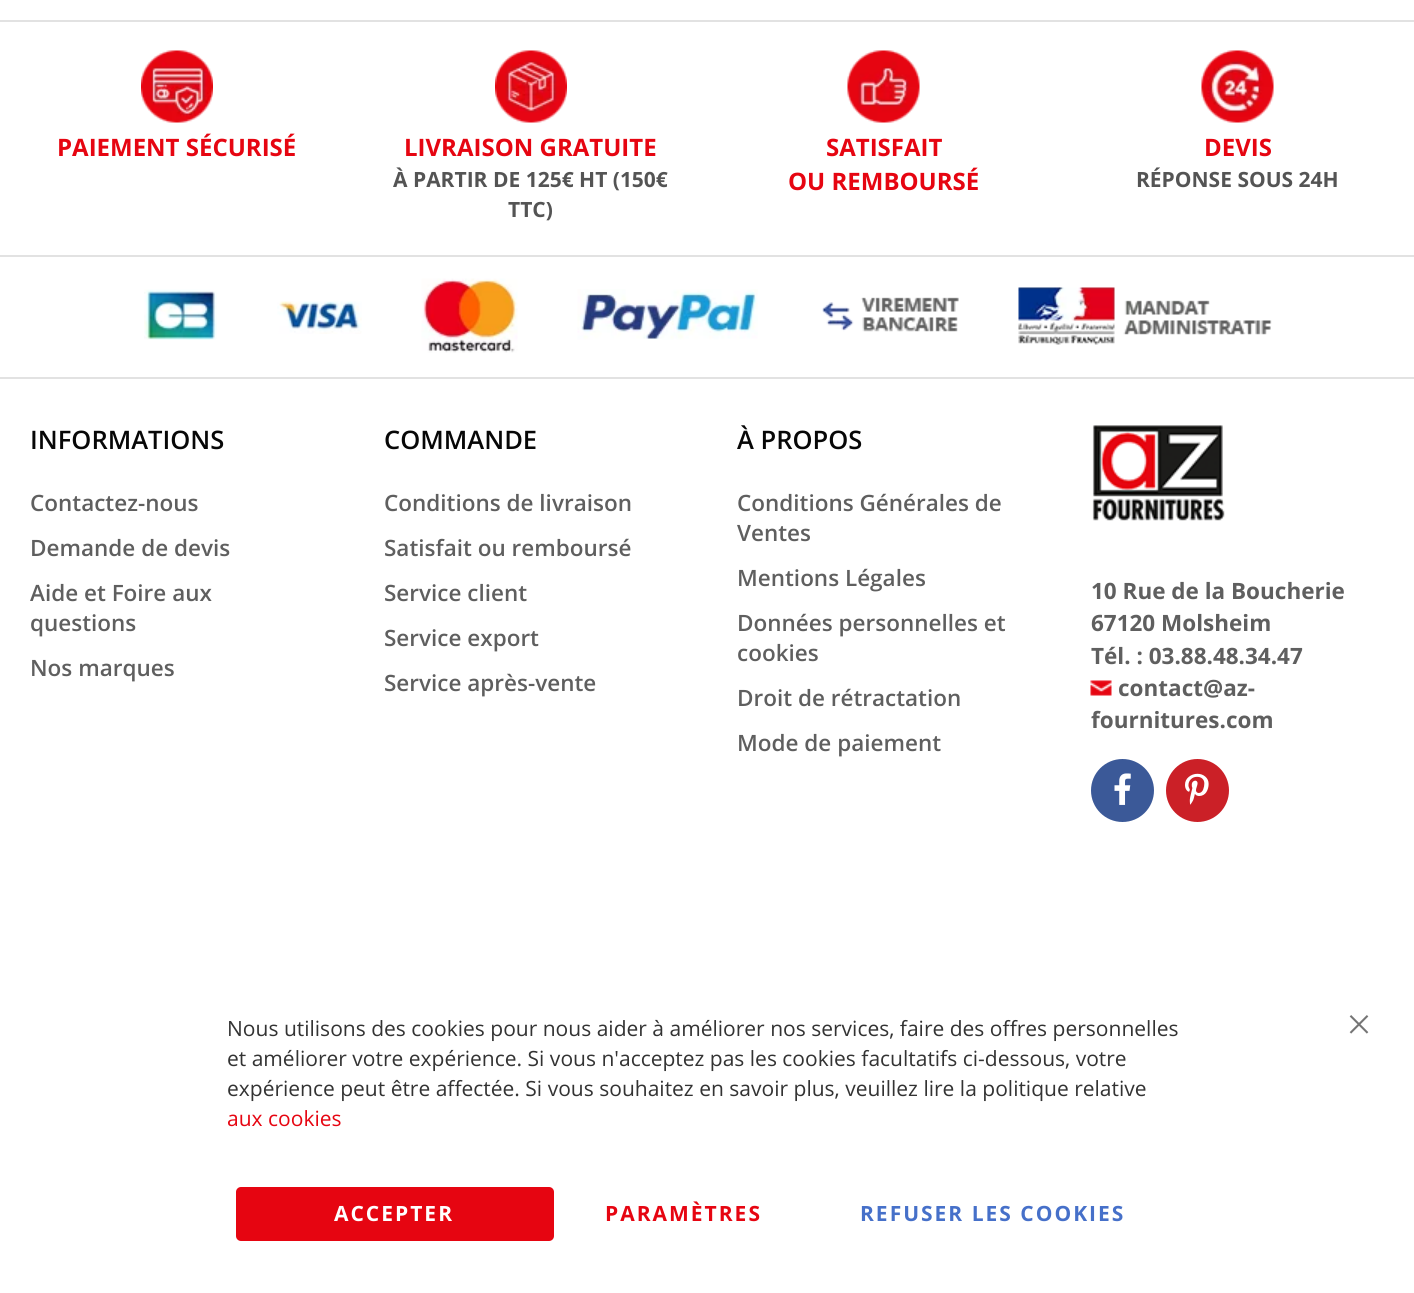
#include <cairo.h>
#include <math.h>
#include <stddef.h>

typedef struct { const char *family; double size; int italic, bold; unsigned color; } style_t;
static cairo_t *ctx;

static void ink(unsigned color) {
    cairo_set_source_rgb(ctx, (color >> 16) / 255.0, (color >> 8 & 255) / 255.0, (color & 255) / 255.0);
}

static void write(double x, double y, const char *s, const style_t *st) {
    cairo_select_font_face(ctx, st->family, st->italic ? CAIRO_FONT_SLANT_ITALIC : CAIRO_FONT_SLANT_NORMAL,
        st->bold ? CAIRO_FONT_WEIGHT_BOLD : CAIRO_FONT_WEIGHT_NORMAL);
    cairo_set_font_size(ctx, st->size);
    ink(st->color);
    cairo_move_to(ctx, x, y);
    cairo_show_text(ctx, s);
}

static void write_spaced(double x, double y, const char *s, double letter, double word) {
    cairo_move_to(ctx, x, y);
    while (*s) {
        char ch[5] = {0};
        int n = 0;
        do ch[n++] = *s++; while ((*s & 0xC0) == 0x80);
        cairo_show_text(ctx, ch);
        cairo_rel_move_to(ctx, letter + word * (*ch == ' '), 0);
    }
}

static void block(double x, double y, double w, double h, unsigned color) {
    ink(color);
    cairo_rectangle(ctx, x, y, w, h);
    cairo_fill(ctx);
}

static void round_path(double x, double y, double w, double h, double r) {
    cairo_new_sub_path(ctx);
    cairo_arc(ctx, x + w - r, y + h - r, r, 0, M_PI / 2);
    cairo_arc(ctx, x + r, y + h - r, r, M_PI / 2, M_PI);
    cairo_arc(ctx, x + r, y + r, r, M_PI, 1.5 * M_PI);
    cairo_arc(ctx, x + w - r, y + r, r, 1.5 * M_PI, 2 * M_PI);
    cairo_close_path(ctx);
}

static void paste(const char *path, double x, double y, double w, double h) {
    cairo_surface_t *image = cairo_image_surface_create_from_png(path);
    cairo_save(ctx);
    cairo_set_source_surface(ctx, image, x, y);
    cairo_rectangle(ctx, x, y, w, h);
    cairo_fill(ctx);
    cairo_restore(ctx);
    cairo_surface_destroy(image);
}

static const style_t s1 = {"Open Sans", 24, 0, 1, 0xe60511};
static const style_t s2 = {"Open Sans", 21, 0, 1, 0x545454};
static const style_t s3 = {"Open Sans SemiBold", 25.5, 0, 0, 0x070707};
static const style_t s4 = {"Open Sans SemiBold", 22.5, 0, 0, 0x5f5f5f};
static const style_t s5 = {"Open Sans", 22.5, 0, 1, 0x5f5f5f};
static const style_t s6 = {"Open Sans", 21, 0, 0, 0x333333};
static const style_t s7 = {"Open Sans", 21, 0, 0, 0xe60511};

int main(void) {
    cairo_surface_t *surface = cairo_image_surface_create(CAIRO_FORMAT_RGB24, 1414, 1293);
    ctx = cairo_create(surface);
    cairo_font_options_t *options = cairo_font_options_create();
    cairo_font_options_set_hint_metrics(options, CAIRO_HINT_METRICS_OFF);
    cairo_font_options_set_hint_style(options, CAIRO_HINT_STYLE_NONE);
    cairo_set_font_options(ctx, options);
    cairo_set_miter_limit(ctx, 4);
    ink(0xffffff);
    cairo_paint(ctx);
    block(0, 20, 1414, 2, 0xe2e2e2);
    paste("pic1.png", 141, 50, 72, 73);
    write(57, 156, "PAIEMENT SÉCURISÉ", &s1);
    paste("pic2.png", 495, 50, 72, 73);
    write(404, 156, "LIVRAISON GRATUITE", &s1);
    write(393, 187, "À PARTIR DE 125€ HT (150€", &s2);
    write(508, 217, "TTC)", &s2);
    paste("pic3.png", 847, 50, 73, 73);
    write(826, 156, "SATISFAIT", &s1);
    write(788, 190, "OU REMBOURSÉ", &s1);
    paste("pic4.png", 1201, 50, 73, 73);
    write(1204, 156, "DEVIS", &s1);
    write(1136, 187, "RÉPONSE SOUS 24H", &s2);
    block(0, 255, 1414, 2, 0xe2e2e2);
    paste("pic5.png", 144, 289, 73, 51);
    paste("pic6.png", 277, 301, 85, 33);
    paste("pic7.png", 421, 278, 97, 75);
    paste("pic8.png", 577, 289, 181, 51);
    paste("pic9.png", 822, 297, 137, 35);
    paste("pic10.png", 1018, 287, 254, 58);
    block(0, 377, 1414, 2, 0xe2e2e2);
    write(30, 449, "INFORMATIONS", &s3);
    write(30, 511, "Contactez-nous", &s4);
    write(30, 556, "Demande de devis", &s4);
    write(30, 601, "Aide et Foire aux", &s4);
    write(30, 631, "questions", &s4);
    write(30, 676, "Nos marques", &s4);
    write(384, 449, "COMMANDE", &s3);
    write(384, 511, "Conditions de livraison", &s4);
    write(384, 556, "Satisfait ou remboursé", &s4);
    write(384, 601, "Service client", &s4);
    write(384, 646, "Service export", &s4);
    write(384, 691, "Service après-vente", &s4);
    write(737, 449, "À PROPOS", &s3);
    write(737, 511, "Conditions Générales de", &s4);
    write(737, 541, "Ventes", &s4);
    write(737, 586, "Mentions Légales", &s4);
    write(737, 631, "Données personnelles et", &s4);
    write(737, 661, "cookies", &s4);
    write(737, 706, "Droit de rétractation", &s4);
    write(737, 751, "Mode de paiement", &s4);
    paste("pic11.png", 1092, 425, 133, 96);
    write(1091, 599, "10 Rue de la Boucherie", &s5);
    write(1091, 631, "67120 Molsheim", &s5);
    write(1091, 664, "Tél. : 03.88.48.34.47", &s5);
    paste("pic12.png", 1090, 680, 22, 16);
    write(1118, 696, "contact@az-", &s5);
    write(1091, 728, "fournitures.com", &s5);
    ink(0x3b5998);
    cairo_new_path(ctx);
    cairo_arc(ctx, 1122.5, 790.5, 31.5, 0, 2 * M_PI);
    cairo_fill(ctx);
    paste("pic13.png", 1114, 773, 17, 32);
    ink(0xcb2027);
    cairo_arc(ctx, 1197.5, 790.5, 31.5, 0, 2 * M_PI);
    cairo_fill(ctx);
    paste("pic14.png", 1185, 773, 24, 32);
    write(227, 1036, "Nous utilisons des cookies pour nous aider à améliorer nos services, faire des offres personnelles", &s6);
    write(227, 1066, "et améliorer votre expérience. Si vous n'acceptez pas les cookies facultatifs ci-dessous, votre", &s6);
    write(227, 1096, "expérience peut être affectée. Si vous souhaitez en savoir plus, veuillez lire la politique relative", &s6);
    write(227, 1126, "aux cookies", &s7);
    round_path(236, 1187, 318, 54, 5);
    cairo_fill(ctx);
    cairo_select_font_face(ctx, "Open Sans", CAIRO_FONT_SLANT_NORMAL, CAIRO_FONT_WEIGHT_BOLD);
    ink(0xffffff);
    write_spaced(334, 1221, "ACCEPTER", 2, 0);
    ink(0xe60511);
    write_spaced(605, 1221, "PARAMÈTRES", 2, 0);
    ink(0x4670c9);
    write_spaced(860, 1221, "REFUSER LES COOKIES", 2, 0);
    paste("pic15.png", 1349, 1015, 20, 19);
    cairo_surface_write_to_png(surface, "screenshot.png");
    cairo_font_options_destroy(options);
    cairo_destroy(ctx);
    cairo_surface_destroy(surface);
    return 0;
}
